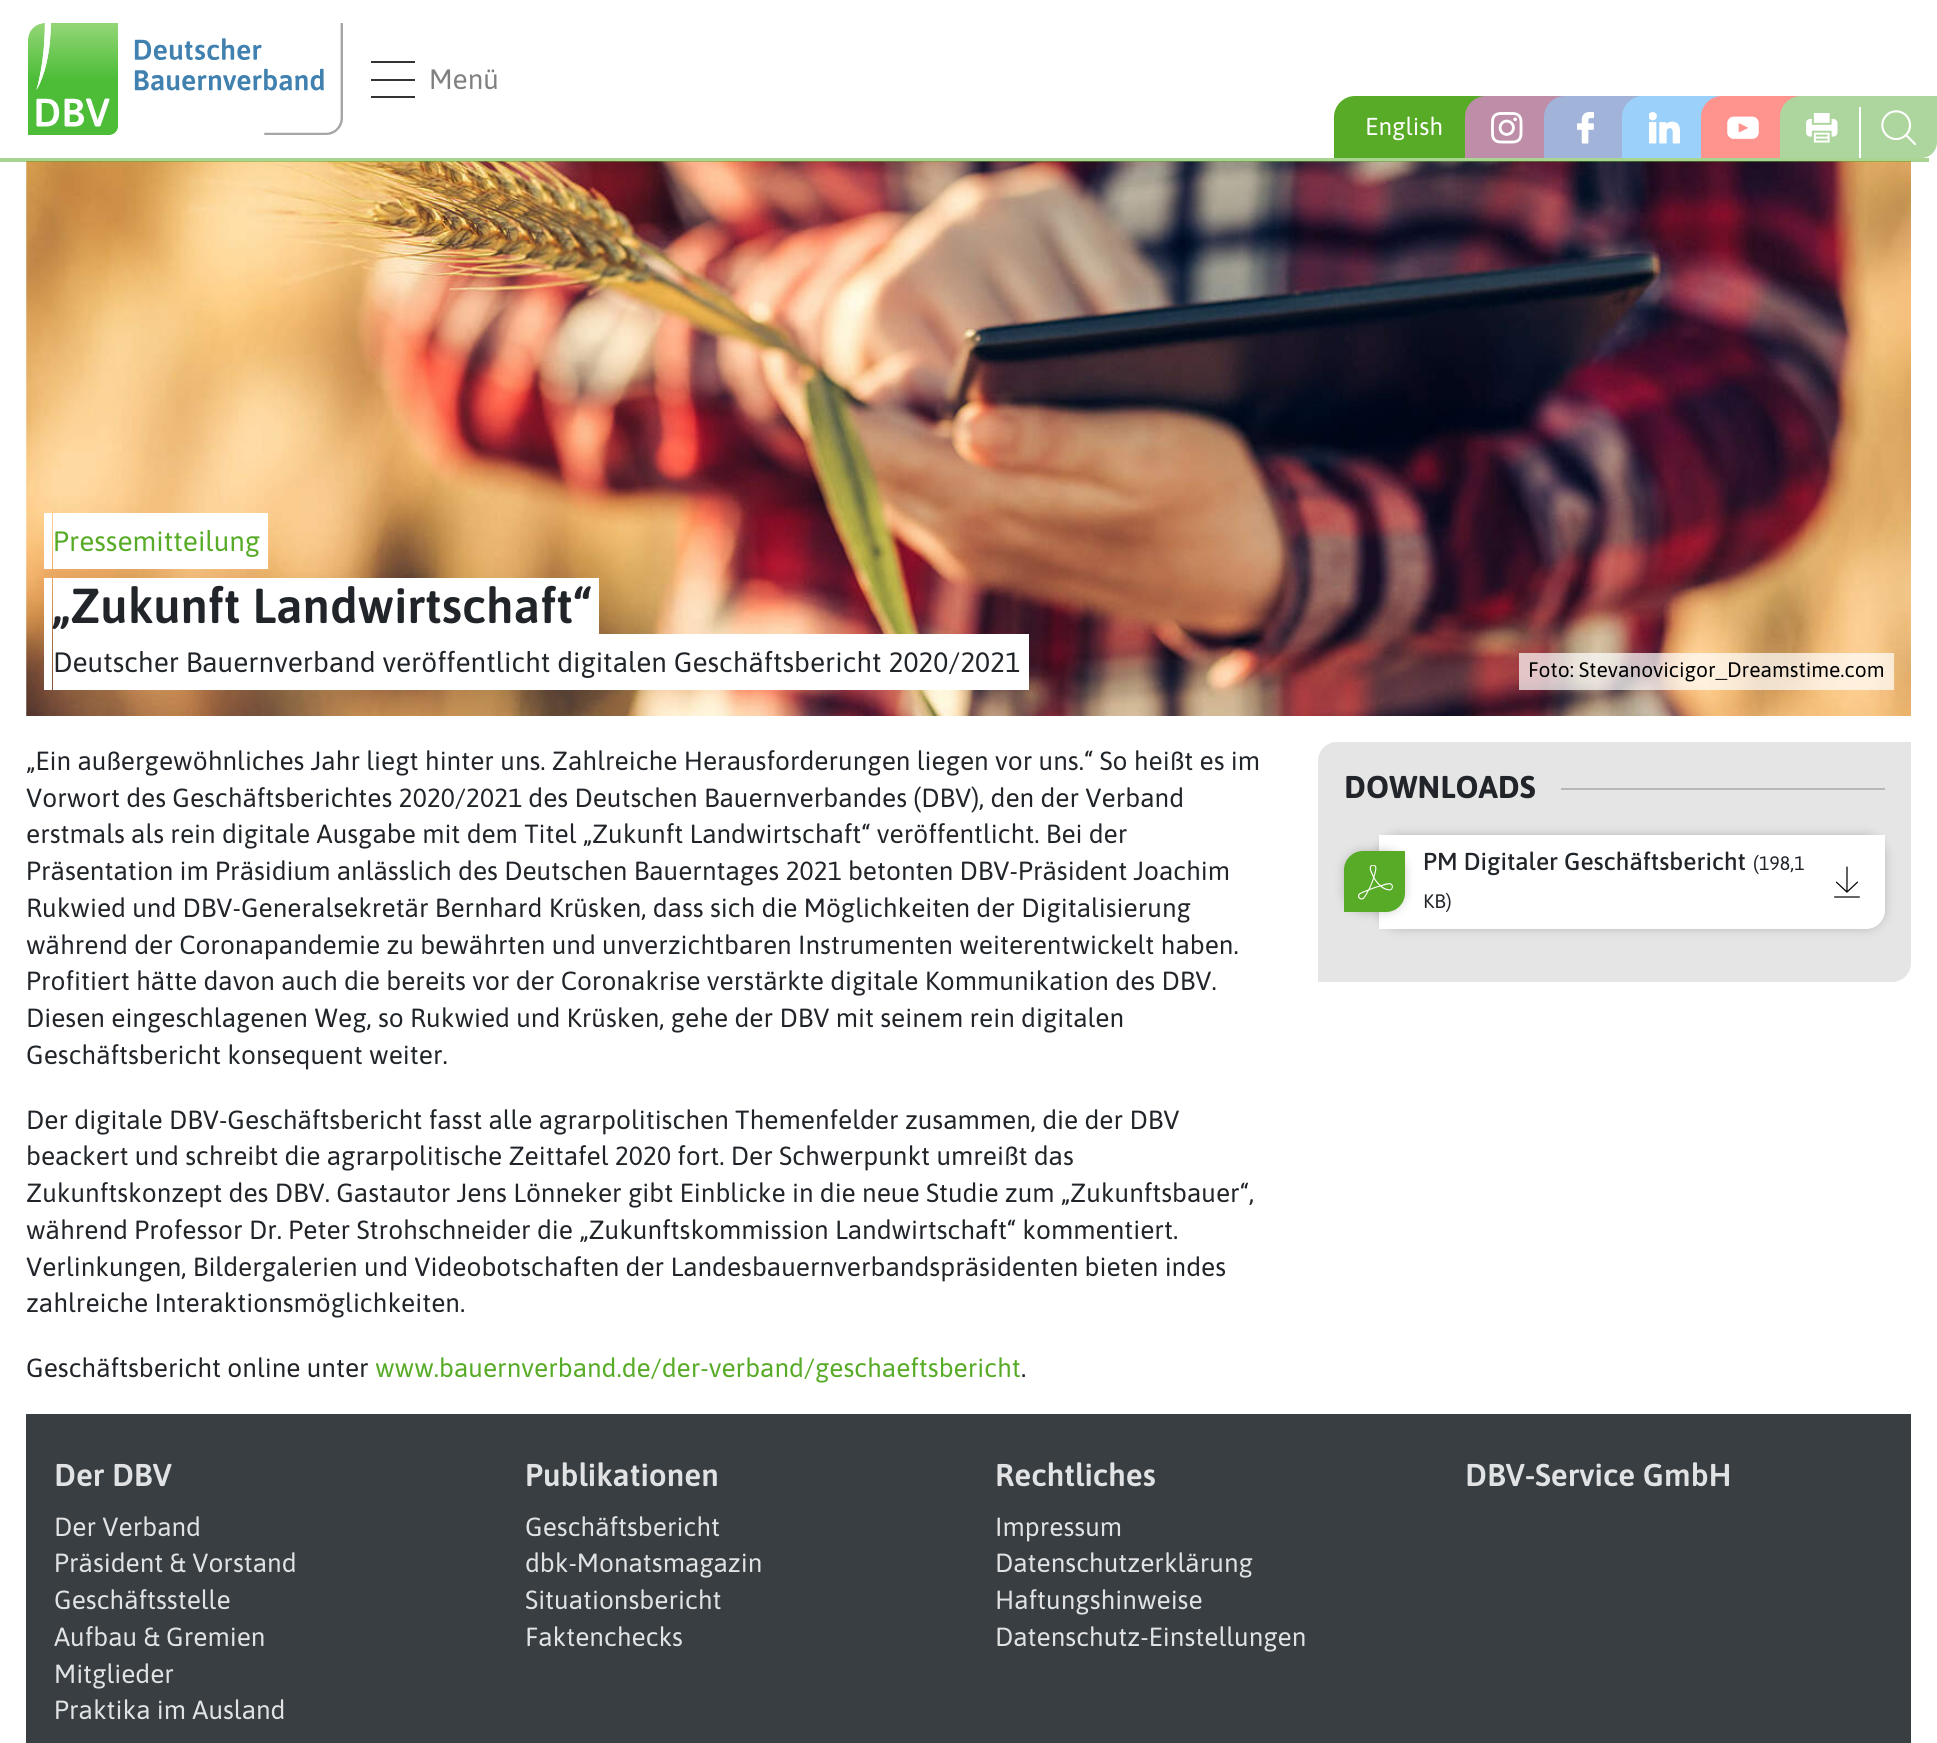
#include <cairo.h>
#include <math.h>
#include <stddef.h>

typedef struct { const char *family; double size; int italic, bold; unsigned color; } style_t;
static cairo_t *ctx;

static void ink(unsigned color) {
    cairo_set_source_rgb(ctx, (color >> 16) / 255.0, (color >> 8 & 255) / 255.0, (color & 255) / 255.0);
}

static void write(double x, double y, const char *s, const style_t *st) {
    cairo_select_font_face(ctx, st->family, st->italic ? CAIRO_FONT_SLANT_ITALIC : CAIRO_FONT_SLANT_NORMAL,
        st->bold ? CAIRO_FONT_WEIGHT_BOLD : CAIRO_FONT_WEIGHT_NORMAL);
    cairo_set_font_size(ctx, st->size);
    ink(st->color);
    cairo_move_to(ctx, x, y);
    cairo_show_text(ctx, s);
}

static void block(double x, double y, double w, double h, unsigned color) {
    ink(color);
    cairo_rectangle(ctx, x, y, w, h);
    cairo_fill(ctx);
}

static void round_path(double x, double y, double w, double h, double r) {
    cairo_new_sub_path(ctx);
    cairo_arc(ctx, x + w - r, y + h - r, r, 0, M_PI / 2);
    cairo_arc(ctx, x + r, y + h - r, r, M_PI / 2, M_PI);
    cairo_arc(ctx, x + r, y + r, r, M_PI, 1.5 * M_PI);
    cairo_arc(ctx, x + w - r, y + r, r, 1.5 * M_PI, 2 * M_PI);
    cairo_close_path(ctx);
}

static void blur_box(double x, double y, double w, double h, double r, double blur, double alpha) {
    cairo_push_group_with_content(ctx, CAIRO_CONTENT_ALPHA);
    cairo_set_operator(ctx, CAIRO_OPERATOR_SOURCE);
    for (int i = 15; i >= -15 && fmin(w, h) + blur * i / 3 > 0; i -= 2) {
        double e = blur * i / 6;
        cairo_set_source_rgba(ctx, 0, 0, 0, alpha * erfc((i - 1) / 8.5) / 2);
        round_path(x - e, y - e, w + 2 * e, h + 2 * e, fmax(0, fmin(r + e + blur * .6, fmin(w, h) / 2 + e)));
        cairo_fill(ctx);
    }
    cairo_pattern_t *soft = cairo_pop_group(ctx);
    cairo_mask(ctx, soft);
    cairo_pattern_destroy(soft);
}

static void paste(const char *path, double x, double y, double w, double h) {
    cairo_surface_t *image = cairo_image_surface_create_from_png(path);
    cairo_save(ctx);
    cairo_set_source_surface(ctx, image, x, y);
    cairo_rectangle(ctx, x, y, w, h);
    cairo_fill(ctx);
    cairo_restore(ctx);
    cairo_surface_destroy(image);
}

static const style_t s1 = {"Asap", 28, 0, 0, 0x808080};
static const style_t s2 = {"Asap", 24.5, 0, 0, 0xffffff};
static const style_t s3 = {"Asap", 28, 0, 0, 0x57ab27};
static const style_t s4 = {"Asap SemiBold", 49, 0, 0, 0x212529};
static const style_t s5 = {"Asap", 28, 0, 0, 0x212529};
static const style_t s6 = {"Asap", 21, 0, 0, 0x000000};
static const style_t s7 = {"Asap", 26.25, 0, 0, 0x212529};
static const style_t s8 = {"Asap", 26.25, 0, 0, 0x57ab27};
static const style_t s9 = {"Asap", 31.5, 0, 1, 0x212529};
static const style_t s10 = {"Asap Medium", 24.5, 0, 0, 0x212529};
static const style_t s11 = {"Asap", 19.5, 0, 0, 0x212529};
static const style_t s12 = {"Asap SemiBold", 31.5, 0, 0, 0xe1e2e3};
static const style_t s13 = {"Asap", 26.25, 0, 0, 0xe1e2e3};

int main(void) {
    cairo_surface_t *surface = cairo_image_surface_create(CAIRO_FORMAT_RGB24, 1937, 1743);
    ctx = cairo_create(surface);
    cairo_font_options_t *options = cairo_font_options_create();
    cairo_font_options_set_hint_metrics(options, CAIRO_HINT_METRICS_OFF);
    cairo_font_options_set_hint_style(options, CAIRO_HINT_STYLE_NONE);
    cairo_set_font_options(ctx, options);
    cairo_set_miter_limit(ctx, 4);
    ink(0xffffff);
    cairo_paint(ctx);
    paste("pic8.png", 26, 161, 1885, 555);
    cairo_set_source_rgba(ctx, 0.341, 0.671, 0.153, 0.5);
    cairo_rectangle(ctx, 0, 158, 1929, 4);
    cairo_fill(ctx);
    paste("pic1.png", 28, 23, 315, 112);
    block(371, 61, 44, 2, 0x333333);
    block(371, 79, 44, 2, 0x333333);
    block(371, 96, 44, 2, 0x333333);
    write(429, 89, "Menü", &s1);
    ink(0x57ab27);
    cairo_new_path(ctx);
    cairo_move_to(ctx, 1355, 96);
    cairo_line_to(ctx, 1509, 96);
    cairo_line_to(ctx, 1509, 137);
    cairo_curve_to(ctx, 1509, 148.5, 1499.5, 158, 1488, 158);
    cairo_line_to(ctx, 1334, 158);
    cairo_line_to(ctx, 1334, 117);
    cairo_curve_to(ctx, 1334, 105.5, 1343.5, 96, 1355, 96);
    cairo_close_path(ctx);
    cairo_fill(ctx);
    write(1365, 135, "English", &s2);
    ink(0xbe8da8);
    cairo_new_path(ctx);
    cairo_move_to(ctx, 1486, 96);
    cairo_line_to(ctx, 1587, 96);
    cairo_line_to(ctx, 1587, 137);
    cairo_curve_to(ctx, 1587, 148.5, 1577.5, 158, 1566, 158);
    cairo_line_to(ctx, 1465, 158);
    cairo_line_to(ctx, 1465, 117);
    cairo_curve_to(ctx, 1465, 105.5, 1474.5, 96, 1486, 96);
    cairo_close_path(ctx);
    cairo_fill(ctx);
    paste("pic2.png", 1491, 112, 32, 32);
    ink(0xa1b3d9);
    cairo_new_path(ctx);
    cairo_move_to(ctx, 1565, 96);
    cairo_line_to(ctx, 1666, 96);
    cairo_line_to(ctx, 1666, 137);
    cairo_curve_to(ctx, 1666, 148.5, 1656.5, 158, 1645, 158);
    cairo_line_to(ctx, 1544, 158);
    cairo_line_to(ctx, 1544, 117);
    cairo_curve_to(ctx, 1544, 105.5, 1553.5, 96, 1565, 96);
    cairo_close_path(ctx);
    cairo_fill(ctx);
    paste("pic3.png", 1577, 112, 17, 32);
    ink(0x9ad0f9);
    cairo_new_path(ctx);
    cairo_move_to(ctx, 1643, 96);
    cairo_line_to(ctx, 1745, 96);
    cairo_line_to(ctx, 1745, 137);
    cairo_curve_to(ctx, 1745, 148.5, 1735.5, 158, 1724, 158);
    cairo_line_to(ctx, 1622, 158);
    cairo_line_to(ctx, 1622, 117);
    cairo_curve_to(ctx, 1622, 105.5, 1631.5, 96, 1643, 96);
    cairo_close_path(ctx);
    cairo_fill(ctx);
    paste("pic4.png", 1649, 112, 31, 32);
    ink(0xff938d);
    cairo_new_path(ctx);
    cairo_move_to(ctx, 1722, 96);
    cairo_line_to(ctx, 1824, 96);
    cairo_line_to(ctx, 1824, 137);
    cairo_curve_to(ctx, 1824, 148.5, 1814.5, 158, 1803, 158);
    cairo_line_to(ctx, 1701, 158);
    cairo_line_to(ctx, 1701, 117);
    cairo_curve_to(ctx, 1701, 105.5, 1710.5, 96, 1722, 96);
    cairo_close_path(ctx);
    cairo_fill(ctx);
    paste("pic5.png", 1727, 116, 32, 23);
    ink(0xadd59e);
    cairo_new_path(ctx);
    cairo_move_to(ctx, 1801, 96);
    cairo_line_to(ctx, 1902, 96);
    cairo_line_to(ctx, 1902, 137);
    cairo_curve_to(ctx, 1902, 148.5, 1892.5, 158, 1881, 158);
    cairo_line_to(ctx, 1780, 158);
    cairo_line_to(ctx, 1780, 117);
    cairo_curve_to(ctx, 1780, 105.5, 1789.5, 96, 1801, 96);
    cairo_close_path(ctx);
    cairo_fill(ctx);
    paste("pic6.png", 1806, 113, 32, 30);
    cairo_new_path(ctx);
    cairo_move_to(ctx, 1880, 96);
    cairo_line_to(ctx, 1937, 96);
    cairo_line_to(ctx, 1937, 142);
    cairo_curve_to(ctx, 1937, 151, 1930, 158, 1921, 158);
    cairo_line_to(ctx, 1859, 158);
    cairo_line_to(ctx, 1859, 117);
    cairo_curve_to(ctx, 1859, 105.5, 1868.5, 96, 1880, 96);
    cairo_close_path(ctx);
    cairo_fill(ctx);
    paste("pic7.png", 1881, 110, 35, 35);
    block(1859, 107, 2, 51, 0xffffff);
    cairo_new_path(ctx);
    cairo_move_to(ctx, 44, 513);
    cairo_line_to(ctx, 44, 569);
    cairo_line_to(ctx, 250, 569);
    cairo_line_to(ctx, 52, 569);
    cairo_line_to(ctx, 52, 513);
    cairo_close_path(ctx);
    cairo_fill(ctx);
    cairo_new_path(ctx);
    cairo_move_to(ctx, 61, 569);
    cairo_line_to(ctx, 268, 569);
    cairo_line_to(ctx, 268, 513);
    cairo_line_to(ctx, 259, 513);
    cairo_line_to(ctx, 259, 569);
    cairo_close_path(ctx);
    cairo_fill(ctx);
    block(53, 513, 206, 56, 0xffffff);
    write(53, 551, "Pressemitteilung", &s3);
    ink(0xffffff);
    cairo_new_path(ctx);
    cairo_move_to(ctx, 61, 634);
    cairo_line_to(ctx, 599, 634);
    cairo_line_to(ctx, 599, 578);
    cairo_line_to(ctx, 590, 578);
    cairo_line_to(ctx, 590, 634);
    cairo_close_path(ctx);
    cairo_fill(ctx);
    block(53, 578, 537, 56, 0xffffff);
    write(53, 623, "„Zukunft Landwirtschaft“", &s4);
    ink(0xffffff);
    cairo_new_path(ctx);
    cairo_move_to(ctx, 44, 578);
    cairo_line_to(ctx, 44, 634);
    cairo_line_to(ctx, 581, 634);
    cairo_line_to(ctx, 52, 634);
    cairo_line_to(ctx, 52, 578);
    cairo_close_path(ctx);
    cairo_fill(ctx);
    cairo_new_path(ctx);
    cairo_move_to(ctx, 44, 634);
    cairo_line_to(ctx, 44, 690);
    cairo_line_to(ctx, 1012, 690);
    cairo_line_to(ctx, 52, 690);
    cairo_line_to(ctx, 52, 634);
    cairo_close_path(ctx);
    cairo_fill(ctx);
    cairo_new_path(ctx);
    cairo_move_to(ctx, 61, 690);
    cairo_line_to(ctx, 1029, 690);
    cairo_line_to(ctx, 1029, 634);
    cairo_line_to(ctx, 1020, 634);
    cairo_line_to(ctx, 1020, 690);
    cairo_close_path(ctx);
    cairo_fill(ctx);
    block(53, 634, 967, 56, 0xffffff);
    write(53, 672, "Deutscher Bauernverband veröffentlicht digitalen Geschäftsbericht 2020/2021", &s5);
    cairo_set_source_rgba(ctx, 1, 1, 1, 0.7);
    cairo_new_path(ctx);
    cairo_move_to(ctx, 1519, 653);
    cairo_line_to(ctx, 1519, 690);
    cairo_line_to(ctx, 1876, 690);
    cairo_line_to(ctx, 1528, 690);
    cairo_line_to(ctx, 1528, 653);
    cairo_close_path(ctx);
    cairo_fill(ctx);
    cairo_new_path(ctx);
    cairo_move_to(ctx, 1537, 690);
    cairo_line_to(ctx, 1894, 690);
    cairo_line_to(ctx, 1894, 653);
    cairo_line_to(ctx, 1885, 653);
    cairo_line_to(ctx, 1885, 690);
    cairo_close_path(ctx);
    cairo_fill(ctx);
    cairo_rectangle(ctx, 1528, 653, 357, 37);
    cairo_fill(ctx);
    write(1528, 677, "Foto: Stevanovicigor_Dreamstime.com", &s6);
    write(26, 770, "„Ein außergewöhnliches Jahr liegt hinter uns. Zahlreiche Herausforderungen liegen vor uns.“ So heißt es im", &s7);
    write(26, 807, "Vorwort des Geschäftsberichtes 2020/2021 des Deutschen Bauernverbandes (DBV), den der Verband", &s7);
    write(26, 843, "erstmals als rein digitale Ausgabe mit dem Titel „Zukunft Landwirtschaft“ veröffentlicht. Bei der", &s7);
    write(26, 880, "Präsentation im Präsidium anlässlich des Deutschen Bauerntages 2021 betonten DBV-Präsident Joachim", &s7);
    write(26, 917, "Rukwied und DBV-Generalsekretär Bernhard Krüsken, dass sich die Möglichkeiten der Digitalisierung", &s7);
    write(26, 954, "während der Coronapandemie zu bewährten und unverzichtbaren Instrumenten weiterentwickelt haben.", &s7);
    write(26, 990, "Profitiert hätte davon auch die bereits vor der Coronakrise verstärkte digitale Kommunikation des DBV.", &s7);
    write(26, 1027, "Diesen eingeschlagenen Weg, so Rukwied und Krüsken, gehe der DBV mit seinem rein digitalen", &s7);
    write(26, 1064, "Geschäftsbericht konsequent weiter.", &s7);
    write(26, 1129, "Der digitale DBV-Geschäftsbericht fasst alle agrarpolitischen Themenfelder zusammen, die der DBV", &s7);
    write(26, 1165, "beackert und schreibt die agrarpolitische Zeittafel 2020 fort. Der Schwerpunkt umreißt das", &s7);
    write(26, 1202, "Zukunftskonzept des DBV. Gastautor Jens Lönneker gibt Einblicke in die neue Studie zum „Zukunftsbauer“,", &s7);
    write(26, 1239, "während Professor Dr. Peter Strohschneider die „Zukunftskommission Landwirtschaft“ kommentiert.", &s7);
    write(26, 1276, "Verlinkungen, Bildergalerien und Videobotschaften der Landesbauernverbandspräsidenten bieten indes", &s7);
    write(26, 1312, "zahlreiche Interaktionsmöglichkeiten.", &s7);
    write(26, 1377, "Geschäftsbericht online unter", &s7);
    write(375, 1377, "www.bauernverband.de/der-verband/geschaeftsbericht", &s8);
    write(1021, 1377, ".", &s7);
    ink(0xe5e5e5);
    cairo_new_path(ctx);
    cairo_move_to(ctx, 1337, 742);
    cairo_line_to(ctx, 1911, 742);
    cairo_line_to(ctx, 1911, 963);
    cairo_curve_to(ctx, 1911, 973.5, 1902.5, 982, 1892, 982);
    cairo_line_to(ctx, 1318, 982);
    cairo_line_to(ctx, 1318, 761);
    cairo_curve_to(ctx, 1318, 750.5, 1326.5, 742, 1337, 742);
    cairo_close_path(ctx);
    cairo_fill(ctx);
    write(1344, 798, "DOWNLOADS", &s9);
    block(1561, 788, 324, 2, 0xb7b7b7);
    ink(0x000000);
    blur_box(1379, 835, 506, 94, 19, 5, 0.2);
    ink(0xffffff);
    cairo_new_path(ctx);
    cairo_move_to(ctx, 1379, 835);
    cairo_line_to(ctx, 1885, 835);
    cairo_line_to(ctx, 1885, 910);
    cairo_curve_to(ctx, 1885, 920.5, 1876.5, 929, 1866, 929);
    cairo_line_to(ctx, 1379, 929);
    cairo_close_path(ctx);
    cairo_fill(ctx);
    ink(0x000000);
    blur_box(1344, 851, 61, 61, 19, 5, 0.2);
    ink(0x57ab27);
    cairo_new_path(ctx);
    cairo_move_to(ctx, 1363, 851);
    cairo_line_to(ctx, 1405, 851);
    cairo_line_to(ctx, 1405, 893);
    cairo_curve_to(ctx, 1405, 903.5, 1396.5, 912, 1386, 912);
    cairo_line_to(ctx, 1344, 912);
    cairo_line_to(ctx, 1344, 870);
    cairo_curve_to(ctx, 1344, 859.5, 1352.5, 851, 1363, 851);
    cairo_close_path(ctx);
    cairo_fill(ctx);
    paste("pic9.png", 1358, 865, 35, 35);
    write(1423, 870, "PM Digitaler Geschäftsbericht", &s10);
    write(1753, 870, "(198,1", &s11);
    paste("pic10.png", 1834, 866, 26, 32);
    write(1423, 908, "KB)", &s11);
    block(26, 1414, 1885, 329, 0x383e42);
    write(54, 1486, "Der DBV", &s12);
    write(54, 1536, "Der Verband", &s13);
    write(54, 1572, "Präsident & Vorstand", &s13);
    write(54, 1609, "Geschäftsstelle", &s13);
    write(54, 1646, "Aufbau & Gremien", &s13);
    write(54, 1683, "Mitglieder", &s13);
    write(54, 1719, "Praktika im Ausland", &s13);
    write(525, 1486, "Publikationen", &s12);
    write(525, 1536, "Geschäftsbericht", &s13);
    write(525, 1572, "dbk-Monatsmagazin", &s13);
    write(525, 1609, "Situationsbericht", &s13);
    write(525, 1646, "Faktenchecks", &s13);
    write(995, 1486, "Rechtliches", &s12);
    write(995, 1536, "Impressum", &s13);
    write(995, 1572, "Datenschutzerklärung", &s13);
    write(995, 1609, "Haftungshinweise", &s13);
    write(995, 1646, "Datenschutz-Einstellungen", &s13);
    write(1465, 1486, "DBV-Service GmbH", &s12);
    cairo_surface_write_to_png(surface, "screenshot.png");
    cairo_font_options_destroy(options);
    cairo_destroy(ctx);
    cairo_surface_destroy(surface);
    return 0;
}
